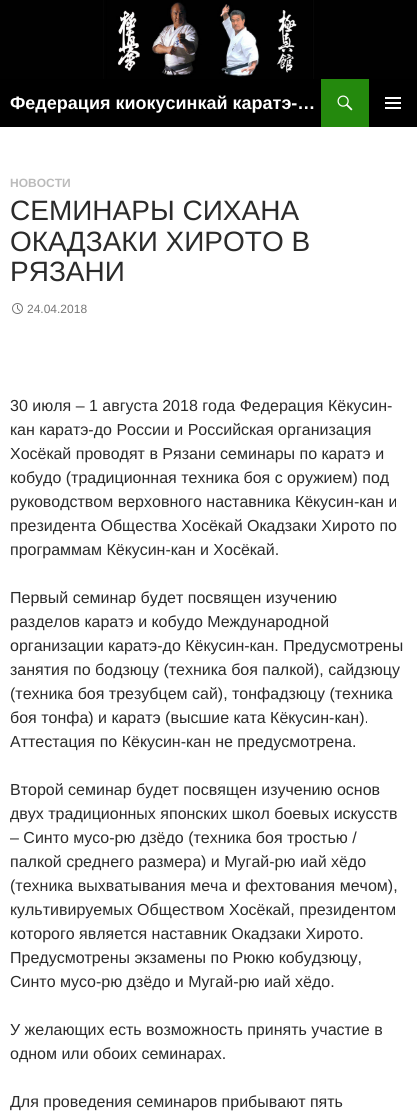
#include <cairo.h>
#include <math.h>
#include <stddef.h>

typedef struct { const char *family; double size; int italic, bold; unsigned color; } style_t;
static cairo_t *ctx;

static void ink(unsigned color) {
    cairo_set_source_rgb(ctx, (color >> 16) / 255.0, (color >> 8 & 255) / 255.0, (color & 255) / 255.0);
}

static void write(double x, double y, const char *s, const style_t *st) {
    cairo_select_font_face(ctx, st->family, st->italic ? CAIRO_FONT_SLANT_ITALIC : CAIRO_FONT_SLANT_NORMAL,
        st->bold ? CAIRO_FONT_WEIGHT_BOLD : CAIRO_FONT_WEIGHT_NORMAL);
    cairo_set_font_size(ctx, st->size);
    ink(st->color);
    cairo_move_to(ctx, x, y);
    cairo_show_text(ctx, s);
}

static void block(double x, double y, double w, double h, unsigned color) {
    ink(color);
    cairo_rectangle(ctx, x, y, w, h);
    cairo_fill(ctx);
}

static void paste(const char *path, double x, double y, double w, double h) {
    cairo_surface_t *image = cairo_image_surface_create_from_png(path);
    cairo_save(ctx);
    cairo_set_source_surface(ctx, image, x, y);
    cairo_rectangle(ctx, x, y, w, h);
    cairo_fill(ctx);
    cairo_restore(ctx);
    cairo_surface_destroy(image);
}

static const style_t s1 = {"Liberation Sans", 18, 0, 1, 0xffffff};
static const style_t s2 = {"Liberation Sans", 12, 0, 1, 0xbbbbbb};
static const style_t s3 = {"Liberation Sans", 28, 0, 0, 0x2b2b2b};
static const style_t s4 = {"Liberation Sans", 12, 0, 0, 0x767676};
static const style_t s5 = {"Liberation Sans", 16, 0, 0, 0x2b2b2b};

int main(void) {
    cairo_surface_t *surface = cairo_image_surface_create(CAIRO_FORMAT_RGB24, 417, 1112);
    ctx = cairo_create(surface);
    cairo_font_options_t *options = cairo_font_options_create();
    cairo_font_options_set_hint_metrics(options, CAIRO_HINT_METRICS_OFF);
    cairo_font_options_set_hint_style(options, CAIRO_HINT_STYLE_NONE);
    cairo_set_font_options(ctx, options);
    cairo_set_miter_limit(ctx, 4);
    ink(0xffffff);
    cairo_paint(ctx);
    paste("pic1.png", 0, 0, 417, 79);
    block(0, 79, 417, 48, 0x000000);
    write(10, 109, "Федерация киокусинкай каратэ-…", &s1);
    block(321, 79, 48, 48, 0x24890d);
    paste("pic2.png", 337, 95, 16, 16);
    paste("pic3.png", 385, 97, 16, 12);
    write(10, 187, "НОВОСТИ", &s2);
    write(10, 220, "СЕМИНАРЫ СИХАНА", &s3);
    write(10, 251, "ОКАДЗАКИ ХИРОТО В", &s3);
    write(10, 281, "РЯЗАНИ", &s3);
    paste("pic4.png", 12, 303, 11, 11);
    write(27, 313, "24.04.2018", &s4);
    write(10, 411, "30 июля – 1 августа 2018 года Федерация Кёкусин-", &s5);
    write(10, 435, "кан каратэ-до России и Российская организация", &s5);
    write(10, 459, "Хосёкай проводят в Рязани семинары по каратэ и", &s5);
    write(10, 483, "кобудо (традиционная техника боя с оружием) под", &s5);
    write(10, 507, "руководством верховного наставника Кёкусин-кан и", &s5);
    write(10, 531, "президента Общества Хосёкай Окадзаки Хирото по", &s5);
    write(10, 555, "программам Кёкусин-кан и Хосёкай.", &s5);
    write(10, 603, "Первый семинар будет посвящен изучению", &s5);
    write(10, 627, "разделов каратэ и кобудо Международной", &s5);
    write(10, 651, "организации каратэ-до Кёкусин-кан. Предусмотрены", &s5);
    write(10, 675, "занятия по бодзюцу (техника боя палкой), сайдзюцу", &s5);
    write(10, 699, "(техника боя трезубцем сай), тонфадзюцу (техника", &s5);
    write(10, 723, "боя тонфа) и каратэ (высшие ката Кёкусин-кан).", &s5);
    write(10, 747, "Аттестация по Кёкусин-кан не предусмотрена.", &s5);
    write(10, 795, "Второй семинар будет посвящен изучению основ", &s5);
    write(10, 819, "двух традиционных японских школ боевых искусств", &s5);
    write(10, 843, "– Синто мусо-рю дзёдо (техника боя тростью /", &s5);
    write(10, 867, "палкой среднего размера) и Мугай-рю иай хёдо", &s5);
    write(10, 891, "(техника выхватывания меча и фехтования мечом),", &s5);
    write(10, 915, "культивируемых Обществом Хосёкай, президентом", &s5);
    write(10, 939, "которого является наставник Окадзаки Хирото.", &s5);
    write(10, 963, "Предусмотрены экзамены по Рюкю кобудзюцу,", &s5);
    write(10, 987, "Синто мусо-рю дзёдо и Мугай-рю иай хёдо.", &s5);
    write(10, 1035, "У желающих есть возможность принять участие в", &s5);
    write(10, 1059, "одном или обоих семинарах.", &s5);
    write(10, 1107, "Для проведения семинаров прибывают пять", &s5);
    cairo_surface_write_to_png(surface, "screenshot.png");
    cairo_font_options_destroy(options);
    cairo_destroy(ctx);
    cairo_surface_destroy(surface);
    return 0;
}
